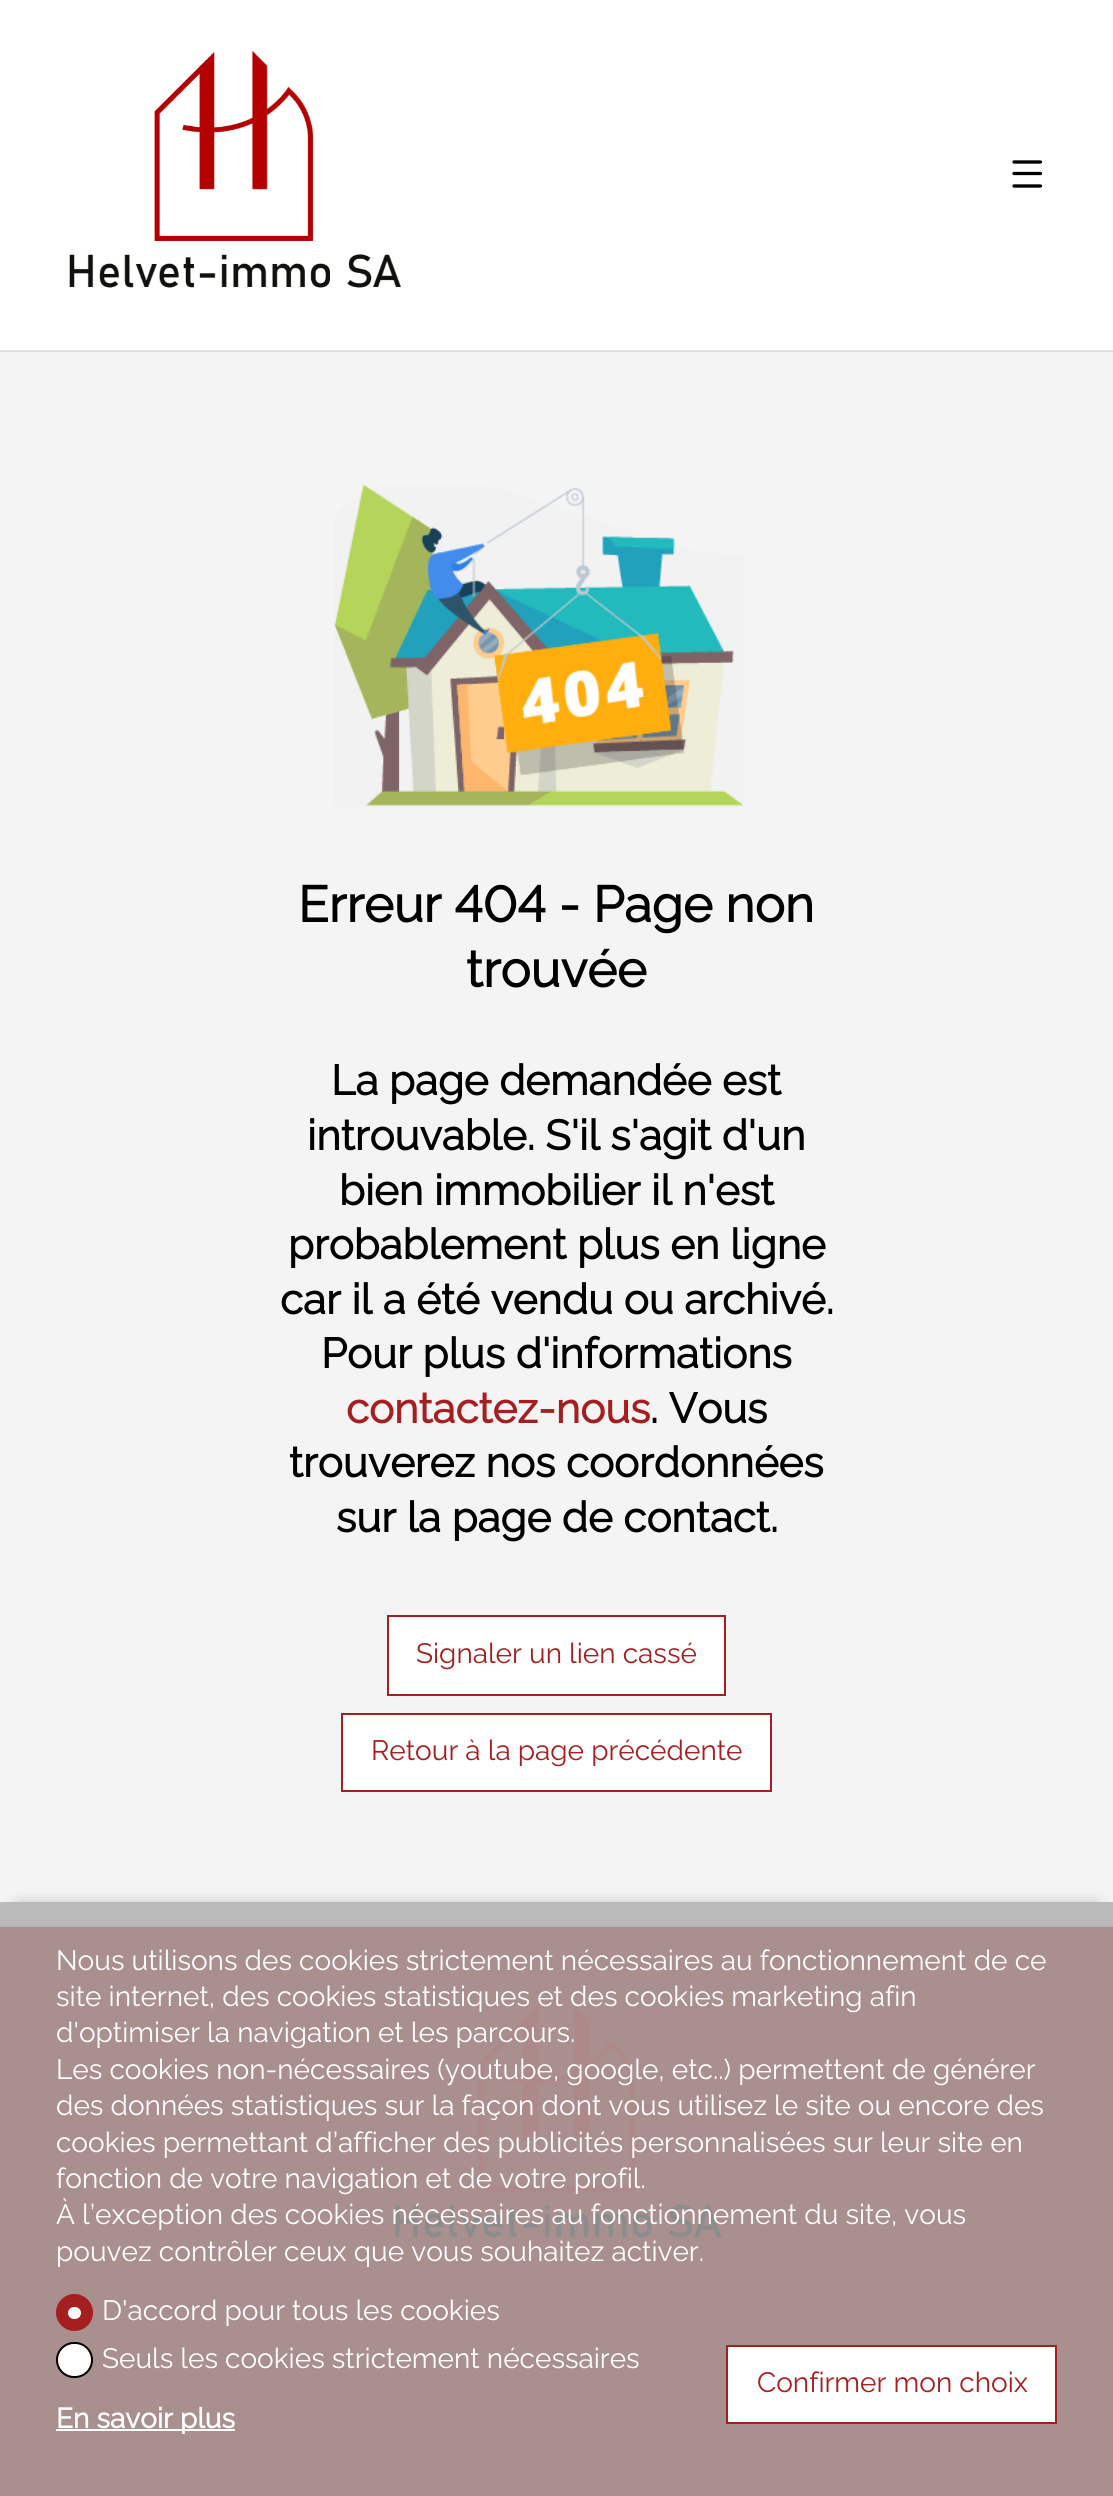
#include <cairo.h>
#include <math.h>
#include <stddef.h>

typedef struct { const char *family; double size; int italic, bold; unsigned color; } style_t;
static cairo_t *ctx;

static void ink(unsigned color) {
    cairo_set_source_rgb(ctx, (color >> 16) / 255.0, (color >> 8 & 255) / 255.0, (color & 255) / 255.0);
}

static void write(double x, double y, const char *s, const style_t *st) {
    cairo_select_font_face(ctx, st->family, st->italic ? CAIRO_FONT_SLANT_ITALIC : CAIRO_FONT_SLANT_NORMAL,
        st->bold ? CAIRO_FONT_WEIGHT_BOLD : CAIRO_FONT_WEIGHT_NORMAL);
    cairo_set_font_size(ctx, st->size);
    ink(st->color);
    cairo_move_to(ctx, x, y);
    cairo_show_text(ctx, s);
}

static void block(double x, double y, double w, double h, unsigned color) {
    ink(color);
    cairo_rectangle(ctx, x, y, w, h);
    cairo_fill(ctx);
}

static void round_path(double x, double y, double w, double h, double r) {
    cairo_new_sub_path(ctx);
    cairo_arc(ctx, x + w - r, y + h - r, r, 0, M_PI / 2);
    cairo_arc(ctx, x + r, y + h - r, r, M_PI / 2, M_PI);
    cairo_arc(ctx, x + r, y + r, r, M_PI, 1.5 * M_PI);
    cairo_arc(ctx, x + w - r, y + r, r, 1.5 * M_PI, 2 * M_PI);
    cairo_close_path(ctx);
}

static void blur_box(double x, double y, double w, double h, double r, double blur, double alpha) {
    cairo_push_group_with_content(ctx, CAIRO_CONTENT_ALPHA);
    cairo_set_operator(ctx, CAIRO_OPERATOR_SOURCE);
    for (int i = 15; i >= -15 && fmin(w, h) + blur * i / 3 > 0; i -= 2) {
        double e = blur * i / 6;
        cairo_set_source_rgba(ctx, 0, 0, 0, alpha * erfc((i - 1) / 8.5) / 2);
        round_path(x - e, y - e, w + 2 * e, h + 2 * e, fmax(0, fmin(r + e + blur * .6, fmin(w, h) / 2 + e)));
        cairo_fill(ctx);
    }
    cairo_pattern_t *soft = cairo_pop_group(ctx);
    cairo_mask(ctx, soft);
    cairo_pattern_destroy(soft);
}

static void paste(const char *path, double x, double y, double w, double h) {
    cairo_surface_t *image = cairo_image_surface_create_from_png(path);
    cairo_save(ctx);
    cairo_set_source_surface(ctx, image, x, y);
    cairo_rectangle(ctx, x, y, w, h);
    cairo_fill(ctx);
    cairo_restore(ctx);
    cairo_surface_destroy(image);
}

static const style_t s1 = {"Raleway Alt", 50.4, 0, 1, 0x000000};
static const style_t s2 = {"Raleway", 50.4, 0, 1, 0x000000};
static const style_t s3 = {"Raleway", 42, 0, 1, 0x000000};
static const style_t s4 = {"Raleway", 42, 0, 1, 0xa51e20};
static const style_t s5 = {"Raleway Thin", 28, 0, 0, 0xa51e20};
static const style_t s6 = {"Raleway Thin", 28, 0, 0, 0xffffff};
static const style_t s7 = {"Raleway", 28, 0, 1, 0xffffff};

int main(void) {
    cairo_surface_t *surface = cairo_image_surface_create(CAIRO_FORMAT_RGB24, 1113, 2496);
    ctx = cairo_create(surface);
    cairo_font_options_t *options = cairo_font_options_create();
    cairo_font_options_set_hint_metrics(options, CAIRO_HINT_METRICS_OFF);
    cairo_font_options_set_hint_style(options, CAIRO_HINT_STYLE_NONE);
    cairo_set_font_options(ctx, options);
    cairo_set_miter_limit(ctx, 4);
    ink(0xffffff);
    cairo_paint(ctx);
    block(0, 350, 1113, 2, 0xdfdfdf);
    paste("pic1.png", 69, 51, 332, 237);
    cairo_new_path(ctx);
    cairo_move_to(ctx, 1014, 162);
    cairo_line_to(ctx, 1040.5, 162);
    cairo_move_to(ctx, 1014, 173.5);
    cairo_line_to(ctx, 1040.5, 173.5);
    cairo_move_to(ctx, 1014, 186);
    cairo_line_to(ctx, 1040.5, 186);
    ink(0x000000);
    cairo_set_line_width(ctx, 3.3);
    cairo_set_line_cap(ctx, CAIRO_LINE_CAP_ROUND);
    cairo_stroke(ctx);
    block(0, 352, 1113, 1573, 0xf4f4f4);
    block(0, 1925, 1113, 2, 0xdfdfdf);
    paste("pic2.png", 334, 484, 410, 323);
    write(298, 922, "Erreur 404 - Page non", &s1);
    write(466, 987, "trouvée", &s2);
    write(331, 1095, "La page demandée est", &s3);
    write(307, 1150, "introuvable. S'il s'agit d'un", &s3);
    write(339, 1205, "bien immobilier il n'est", &s3);
    write(288, 1259, "probablement plus en ligne", &s3);
    write(280, 1314, "car il a été vendu ou archivé.", &s3);
    write(321, 1368, "Pour plus d'informations", &s3);
    write(346, 1423, "contactez-nous", &s4);
    write(650, 1423, ". Vous", &s3);
    write(289, 1477, "trouverez nos coordonnées", &s3);
    write(336, 1532, "sur la page de contact.", &s3);
    ink(0xffffff);
    cairo_rectangle(ctx, 388, 1616, 337, 79);
    cairo_fill_preserve(ctx);
    ink(0xa51e20);
    cairo_set_line_width(ctx, 2);
    cairo_set_line_cap(ctx, CAIRO_LINE_CAP_BUTT);
    cairo_stroke(ctx);
    write(416, 1663, "Signaler un lien cassé", &s5);
    ink(0xffffff);
    cairo_rectangle(ctx, 342, 1714, 429, 77);
    cairo_fill_preserve(ctx);
    ink(0xa51e20);
    cairo_stroke(ctx);
    write(371, 1760, "Retour à la page précédente", &s5);
    block(0, 1927, 1113, 569, 0xa51e20);
    paste("pic3.png", 394, 2004, 328, 234);
    cairo_save(ctx);
    cairo_set_fill_rule(ctx, CAIRO_FILL_RULE_EVEN_ODD);
    cairo_new_path(ctx);
    cairo_move_to(ctx, 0, 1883);
    cairo_line_to(ctx, 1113, 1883);
    cairo_line_to(ctx, 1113, 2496);
    cairo_line_to(ctx, 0, 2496);
    cairo_close_path(ctx);
    cairo_move_to(ctx, 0, 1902);
    cairo_line_to(ctx, 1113, 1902);
    cairo_line_to(ctx, 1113, 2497);
    cairo_line_to(ctx, 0, 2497);
    cairo_close_path(ctx);
    cairo_clip(ctx);
    ink(0x000000);
    blur_box(19, 1911, 1078, 560, 0, 9, 0.66);
    cairo_restore(ctx);
    cairo_set_source_rgba(ctx, 0.671, 0.671, 0.671, 0.8);
    cairo_rectangle(ctx, 0, 1902, 1113, 594);
    cairo_fill(ctx);
    write(56, 1970, "Nous utilisons des cookies strictement nécessaires au fonctionnement de ce", &s6);
    write(56, 2006, "site internet, des cookies statistiques et des cookies marketing afin", &s6);
    write(56, 2042, "d'optimiser la navigation et les parcours.", &s6);
    write(56, 2079, "Les cookies non-nécessaires (youtube, google, etc..) permettent de générer", &s6);
    write(56, 2115, "des données statistiques sur la façon dont vous utilisez le site ou encore des", &s6);
    write(56, 2152, "cookies permettant d’afficher des publicités personnalisées sur leur site en", &s6);
    write(56, 2188, "fonction de votre navigation et de votre profil.", &s6);
    write(56, 2224, "À l’exception des cookies nécessaires au fonctionnement du site, vous", &s6);
    write(56, 2261, "pouvez contrôler ceux que vous souhaitez activer.", &s6);
    ink(0xa51e20);
    cairo_new_path(ctx);
    cairo_arc(ctx, 74.5, 2312.5, 17.5, 0, 2 * M_PI);
    cairo_fill_preserve(ctx);
    cairo_stroke(ctx);
    ink(0xffffff);
    round_path(68, 2307, 13, 12, 6);
    cairo_fill(ctx);
    write(102, 2320, "D'accord pour tous les cookies", &s6);
    round_path(57, 2343, 35, 34, 17);
    cairo_fill_preserve(ctx);
    ink(0x000000);
    cairo_stroke(ctx);
    write(102, 2368, "Seuls les cookies strictement nécessaires", &s6);
    block(56, 2429, 179, 2, 0xffffff);
    write(56, 2428, "En savoir plus", &s7);
    cairo_rectangle(ctx, 727, 2346, 329, 77);
    cairo_fill_preserve(ctx);
    ink(0xa51e20);
    cairo_stroke(ctx);
    write(757, 2392, "Confirmer mon choix", &s5);
    cairo_surface_write_to_png(surface, "screenshot.png");
    cairo_font_options_destroy(options);
    cairo_destroy(ctx);
    cairo_surface_destroy(surface);
    return 0;
}
